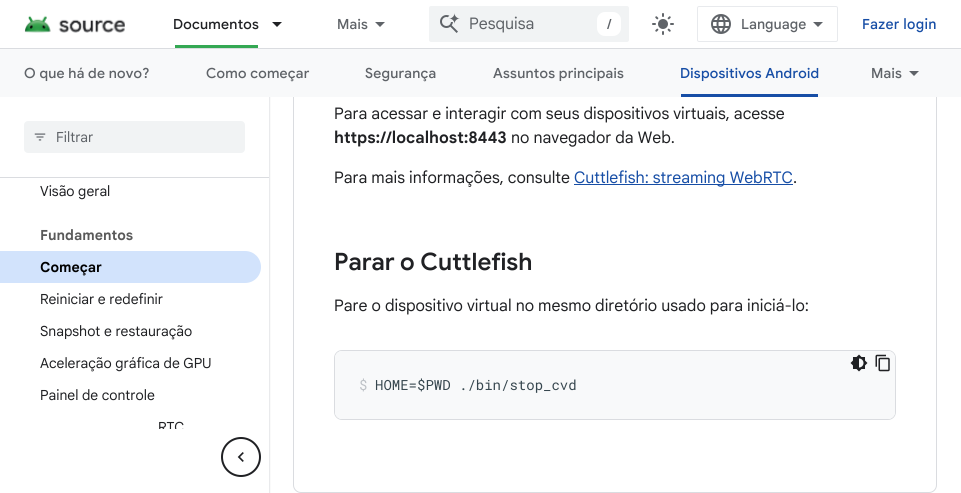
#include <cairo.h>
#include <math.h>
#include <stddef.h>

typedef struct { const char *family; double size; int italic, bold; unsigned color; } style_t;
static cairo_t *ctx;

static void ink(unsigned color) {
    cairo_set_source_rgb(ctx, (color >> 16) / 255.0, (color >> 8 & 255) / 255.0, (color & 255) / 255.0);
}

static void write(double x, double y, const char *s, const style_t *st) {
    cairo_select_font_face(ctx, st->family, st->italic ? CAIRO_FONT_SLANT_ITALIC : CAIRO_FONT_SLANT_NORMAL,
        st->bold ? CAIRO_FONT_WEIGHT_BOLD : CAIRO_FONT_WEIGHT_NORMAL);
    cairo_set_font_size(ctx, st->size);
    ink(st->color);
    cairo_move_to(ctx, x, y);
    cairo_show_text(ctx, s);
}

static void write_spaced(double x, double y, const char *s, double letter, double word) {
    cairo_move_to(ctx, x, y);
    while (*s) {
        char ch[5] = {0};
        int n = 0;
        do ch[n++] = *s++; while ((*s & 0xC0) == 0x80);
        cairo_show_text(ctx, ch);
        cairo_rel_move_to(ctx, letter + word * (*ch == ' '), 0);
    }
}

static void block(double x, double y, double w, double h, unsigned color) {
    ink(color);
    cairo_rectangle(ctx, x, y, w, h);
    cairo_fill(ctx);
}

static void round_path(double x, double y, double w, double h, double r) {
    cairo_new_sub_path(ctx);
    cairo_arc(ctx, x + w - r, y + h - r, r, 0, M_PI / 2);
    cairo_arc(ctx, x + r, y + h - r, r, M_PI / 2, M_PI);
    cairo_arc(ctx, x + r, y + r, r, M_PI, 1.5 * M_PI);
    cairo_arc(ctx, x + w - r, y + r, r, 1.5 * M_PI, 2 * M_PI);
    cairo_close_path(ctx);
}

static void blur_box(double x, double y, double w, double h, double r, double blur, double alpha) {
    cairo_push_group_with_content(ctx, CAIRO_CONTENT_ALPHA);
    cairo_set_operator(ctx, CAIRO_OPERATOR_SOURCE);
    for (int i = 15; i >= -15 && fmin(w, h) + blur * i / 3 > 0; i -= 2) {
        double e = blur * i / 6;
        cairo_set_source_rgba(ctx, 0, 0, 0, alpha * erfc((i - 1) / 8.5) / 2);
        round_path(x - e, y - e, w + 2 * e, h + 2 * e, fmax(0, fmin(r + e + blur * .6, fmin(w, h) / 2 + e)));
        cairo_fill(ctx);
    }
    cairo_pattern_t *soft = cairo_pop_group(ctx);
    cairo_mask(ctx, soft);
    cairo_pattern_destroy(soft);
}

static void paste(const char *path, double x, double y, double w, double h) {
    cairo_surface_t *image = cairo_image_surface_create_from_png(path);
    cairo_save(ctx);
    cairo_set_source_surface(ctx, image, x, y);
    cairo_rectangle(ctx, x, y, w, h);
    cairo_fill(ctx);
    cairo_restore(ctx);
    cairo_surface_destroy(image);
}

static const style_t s1 = {"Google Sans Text", 16, 0, 0, 0x5f6368};
static const style_t s2 = {"Google Sans Medium", 14, 0, 0, 0x5f6368};
static const style_t s3 = {"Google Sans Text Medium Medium", 14, 0, 0, 0x5f6368};
static const style_t s4 = {"Google Sans Text", 14, 0, 0, 0x5f6368};
static const style_t s5 = {"Google Sans Text", 14, 0, 0, 0x202124};
static const style_t s6 = {"Google Sans Text", 14, 0, 1, 0x595959};
static const style_t s7 = {"Google Sans Text", 14, 0, 1, 0x000000};
static const style_t s8 = {"Google Sans Text", 16, 0, 0, 0x202124};
static const style_t s9 = {"Google Sans Text", 16, 0, 1, 0x202124};
static const style_t s10 = {"Google Sans Text", 16, 0, 0, 0x174ea6};
static const style_t s11 = {"Google Sans SemiBold", 24, 0, 0, 0x202124};
static const style_t s12 = {"Roboto Mono", 14, 0, 0, 0xbdc1c6};
static const style_t s13 = {"Roboto Mono", 14, 0, 0, 0x37474f};

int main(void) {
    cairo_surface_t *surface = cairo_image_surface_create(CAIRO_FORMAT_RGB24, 961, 493);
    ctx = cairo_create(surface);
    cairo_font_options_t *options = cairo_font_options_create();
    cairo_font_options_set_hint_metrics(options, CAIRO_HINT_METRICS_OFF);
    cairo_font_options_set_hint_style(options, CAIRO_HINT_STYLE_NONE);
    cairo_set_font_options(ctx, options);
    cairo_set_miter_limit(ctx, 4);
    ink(0xffffff);
    cairo_paint(ctx);
    cairo_save(ctx);
    cairo_rectangle(ctx, 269, 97, 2, 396);
    cairo_clip(ctx);
    ink(0xbdc1c6);
    blur_box(0, 1, 269, 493, 0, 1, 1);
    cairo_restore(ctx);
    round_path(293.5, -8.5, 643, 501, 7.5);
    ink(0xdadce0);
    cairo_set_line_width(ctx, 1);
    cairo_stroke(ctx);
    block(269, 0, 668, 48, 0xffffff);
    block(0, 48, 961, 1, 0xdadce0);
    paste("pic1.png", 24, 15, 101, 18);
    cairo_select_font_face(ctx, "Google Sans Medium", CAIRO_FONT_SLANT_NORMAL, CAIRO_FONT_WEIGHT_NORMAL);
    cairo_set_font_size(ctx, 14);
    ink(0x202124);
    write_spaced(173, 29, "Documentos", 0.25, 0);
    block(175, 45, 83, 3, 0x34a853);
    ink(0x202124);
    cairo_new_path(ctx);
    cairo_move_to(ctx, 272, 22);
    cairo_line_to(ctx, 282, 22);
    cairo_line_to(ctx, 277, 27);
    cairo_close_path(ctx);
    cairo_fill(ctx);
    ink(0x5f6368);
    write_spaced(337, 29, "Mais", 0.25, 0);
    cairo_new_path(ctx);
    cairo_move_to(ctx, 375, 22);
    cairo_line_to(ctx, 385, 22);
    cairo_line_to(ctx, 380, 27);
    cairo_close_path(ctx);
    cairo_fill(ctx);
    ink(0xf1f3f4);
    round_path(429, 6, 200, 36, 2);
    cairo_fill(ctx);
    paste("pic2.png", 440, 13, 20, 20);
    write(469, 29, "Pesquisa", &s1);
    ink(0xffffff);
    round_path(597, 12, 24, 24, 8);
    cairo_fill(ctx);
    write(607, 29, "/", &s2);
    paste("pic3.png", 652, 13, 22, 22);
    round_path(697.5, 6.5, 140, 35, 1.5);
    ink(0xe8eaed);
    cairo_stroke(ctx);
    paste("pic4.png", 711, 14, 20, 20);
    write(741, 29, "Language", &s3);
    cairo_new_path(ctx);
    cairo_move_to(ctx, 818, 27);
    cairo_line_to(ctx, 813, 22);
    cairo_line_to(ctx, 823, 22);
    cairo_close_path(ctx);
    cairo_fill(ctx);
    ink(0x174ea6);
    write_spaced(862, 29, "Fazer login", 0.25, 0);
    block(0, 49, 961, 48, 0xf8f9fa);
    cairo_select_font_face(ctx, "Google Sans Medium", CAIRO_FONT_SLANT_NORMAL, CAIRO_FONT_WEIGHT_NORMAL);
    ink(0x5f6368);
    write_spaced(24, 78, "O que há de novo?", 0.25, 0);
    write_spaced(206, 78, "Como começar", 0.25, 0);
    write_spaced(365, 78, "Segurança", 0.25, 0);
    write_spaced(493, 78, "Assuntos principais", 0.25, 0);
    ink(0x174ea6);
    write_spaced(680, 78, "Dispositivos Android", 0.25, 0);
    block(681, 94, 137, 3, 0x174ea6);
    ink(0x5f6368);
    write_spaced(871, 78, "Mais", 0.25, 0);
    cairo_new_path(ctx);
    cairo_move_to(ctx, 909, 71);
    cairo_line_to(ctx, 919, 71);
    cairo_line_to(ctx, 914, 76);
    cairo_close_path(ctx);
    cairo_fill(ctx);
    block(0, 177, 269, 1, 0xdadce0);
    ink(0xf1f3f4);
    round_path(24, 121, 221, 32, 4);
    cairo_fill(ctx);
    paste("pic5.png", 34, 133, 12, 8);
    write(56, 142, "Filtrar", &s4);
    write(40, 196, "Visão geral", &s5);
    write(40, 240, "Fundamentos", &s6);
    ink(0xd2e3fc);
    cairo_new_path(ctx);
    cairo_move_to(ctx, 0, 251);
    cairo_line_to(ctx, 245, 251);
    cairo_curve_to(ctx, 254, 251, 261, 258, 261, 267);
    cairo_curve_to(ctx, 261, 276, 254, 283, 245, 283);
    cairo_line_to(ctx, 0, 283);
    cairo_close_path(ctx);
    cairo_fill(ctx);
    write(40, 272, "Começar", &s7);
    write(40, 304, "Reiniciar e redefinir", &s5);
    write(40, 336, "Snapshot e restauração", &s5);
    write(40, 368, "Aceleração gráfica de GPU", &s5);
    write(40, 400, "Painel de controle", &s5);
    write(158, 432, "RTC", &s5);
    write(334, 119, "Para acessar e interagir com seus dispositivos virtuais, acesse", &s8);
    write(334, 143, "https://localhost:8443", &s9);
    write(511, 143, "no navegador da Web.", &s8);
    write(334, 183, "Para mais informações, consulte", &s8);
    block(574, 184, 219, 1, 0x174ea6);
    write(574, 183, "Cuttlefish: streaming WebRTC", &s10);
    write(793, 183, ".", &s8);
    write(334, 270, "Parar o Cuttlefish", &s11);
    write(334, 311, "Pare o dispositivo virtual no mesmo diretório usado para iniciá-lo:", &s8);
    round_path(334.5, 350.5, 561, 69, 7.5);
    ink(0xdadce0);
    cairo_stroke(ctx);
    ink(0xf8f9fa);
    round_path(335, 351, 560, 68, 7);
    cairo_fill(ctx);
    paste("pic6.png", 850, 354, 18, 18);
    paste("pic7.png", 875, 354, 15, 18);
    write(359, 390, "$", &s12);
    write(375, 390, "HOME=$PWD ./bin/stop_cvd", &s13);
    block(158, 429, 26, 4, 0xffffff);
    cairo_new_path(ctx);
    cairo_arc(ctx, 241, 457, 19, 0, 2 * M_PI);
    ink(0x202124);
    cairo_set_line_width(ctx, 2);
    cairo_stroke(ctx);
    paste("pic8.png", 237, 452, 7, 10);
    cairo_surface_write_to_png(surface, "screenshot.png");
    cairo_font_options_destroy(options);
    cairo_destroy(ctx);
    cairo_surface_destroy(surface);
    return 0;
}
